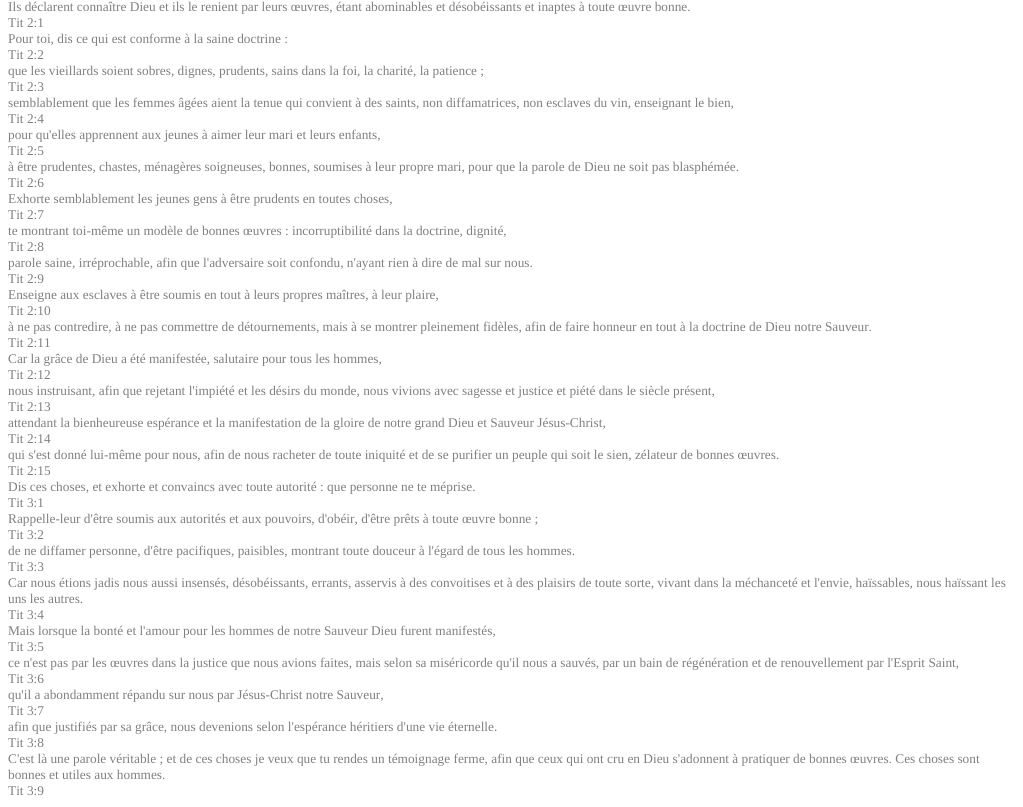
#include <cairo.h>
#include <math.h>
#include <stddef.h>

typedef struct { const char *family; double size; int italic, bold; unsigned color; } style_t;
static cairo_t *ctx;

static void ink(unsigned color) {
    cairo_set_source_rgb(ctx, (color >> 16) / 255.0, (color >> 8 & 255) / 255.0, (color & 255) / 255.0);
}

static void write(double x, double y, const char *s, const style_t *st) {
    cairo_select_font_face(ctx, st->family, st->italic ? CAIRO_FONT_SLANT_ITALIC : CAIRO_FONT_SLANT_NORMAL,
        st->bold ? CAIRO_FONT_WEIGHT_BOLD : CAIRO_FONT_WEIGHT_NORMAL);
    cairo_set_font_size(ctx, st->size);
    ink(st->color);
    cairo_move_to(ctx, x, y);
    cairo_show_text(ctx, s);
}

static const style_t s1 = {"Liberation Serif", 13.33, 0, 0, 0x808080};

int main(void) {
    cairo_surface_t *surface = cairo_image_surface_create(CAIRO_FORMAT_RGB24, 1023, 807);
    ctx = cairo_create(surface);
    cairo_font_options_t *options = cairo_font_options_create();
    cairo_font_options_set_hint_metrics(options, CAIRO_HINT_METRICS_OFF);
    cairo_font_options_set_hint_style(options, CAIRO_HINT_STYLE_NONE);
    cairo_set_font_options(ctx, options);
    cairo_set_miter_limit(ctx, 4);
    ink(0xffffff);
    cairo_paint(ctx);
    write(8, 11, "Ils déclarent connaître Dieu et ils le renient par leurs œuvres, étant abominables et désobéissants et inaptes à toute œuvre bonne.", &s1);
    write(8, 27, "Tit 2:1", &s1);
    write(8, 43, "Pour toi, dis ce qui est conforme à la saine doctrine :", &s1);
    write(8, 59, "Tit 2:2", &s1);
    write(8, 75, "que les vieillards soient sobres, dignes, prudents, sains dans la foi, la charité, la patience ;", &s1);
    write(8, 91, "Tit 2:3", &s1);
    write(8, 107, "semblablement que les femmes âgées aient la tenue qui convient à des saints, non diffamatrices, non esclaves du vin, enseignant le bien,", &s1);
    write(8, 123, "Tit 2:4", &s1);
    write(8, 139, "pour qu'elles apprennent aux jeunes à aimer leur mari et leurs enfants,", &s1);
    write(8, 155, "Tit 2:5", &s1);
    write(8, 171, "à être prudentes, chastes, ménagères soigneuses, bonnes, soumises à leur propre mari, pour que la parole de Dieu ne soit pas blasphémée.", &s1);
    write(8, 187, "Tit 2:6", &s1);
    write(8, 203, "Exhorte semblablement les jeunes gens à être prudents en toutes choses,", &s1);
    write(8, 219, "Tit 2:7", &s1);
    write(8, 235, "te montrant toi-même un modèle de bonnes œuvres : incorruptibilité dans la doctrine, dignité,", &s1);
    write(8, 251, "Tit 2:8", &s1);
    write(8, 267, "parole saine, irréprochable, afin que l'adversaire soit confondu, n'ayant rien à dire de mal sur nous.", &s1);
    write(8, 283, "Tit 2:9", &s1);
    write(8, 299, "Enseigne aux esclaves à être soumis en tout à leurs propres maîtres, à leur plaire,", &s1);
    write(8, 315, "Tit 2:10", &s1);
    write(8, 331, "à ne pas contredire, à ne pas commettre de détournements, mais à se montrer pleinement fidèles, afin de faire honneur en tout à la doctrine de Dieu notre Sauveur.", &s1);
    write(8, 347, "Tit 2:11", &s1);
    write(8, 363, "Car la grâce de Dieu a été manifestée, salutaire pour tous les hommes,", &s1);
    write(8, 379, "Tit 2:12", &s1);
    write(8, 395, "nous instruisant, afin que rejetant l'impiété et les désirs du monde, nous vivions avec sagesse et justice et piété dans le siècle présent,", &s1);
    write(8, 411, "Tit 2:13", &s1);
    write(8, 427, "attendant la bienheureuse espérance et la manifestation de la gloire de notre grand Dieu et Sauveur Jésus-Christ,", &s1);
    write(8, 443, "Tit 2:14", &s1);
    write(8, 459, "qui s'est donné lui-même pour nous, afin de nous racheter de toute iniquité et de se purifier un peuple qui soit le sien, zélateur de bonnes œuvres.", &s1);
    write(8, 475, "Tit 2:15", &s1);
    write(8, 491, "Dis ces choses, et exhorte et convaincs avec toute autorité : que personne ne te méprise.", &s1);
    write(8, 507, "Tit 3:1", &s1);
    write(8, 523, "Rappelle-leur d'être soumis aux autorités et aux pouvoirs, d'obéir, d'être prêts à toute œuvre bonne ;", &s1);
    write(8, 539, "Tit 3:2", &s1);
    write(8, 555, "de ne diffamer personne, d'être pacifiques, paisibles, montrant toute douceur à l'égard de tous les hommes.", &s1);
    write(8, 571, "Tit 3:3", &s1);
    write(8, 587, "Car nous étions jadis nous aussi insensés, désobéissants, errants, asservis à des convoitises et à des plaisirs de toute sorte, vivant dans la méchanceté et l'envie, haïssables, nous haïssant les", &s1);
    write(8, 603, "uns les autres.", &s1);
    write(8, 619, "Tit 3:4", &s1);
    write(8, 635, "Mais lorsque la bonté et l'amour pour les hommes de notre Sauveur Dieu furent manifestés,", &s1);
    write(8, 651, "Tit 3:5", &s1);
    write(8, 667, "ce n'est pas par les œuvres dans la justice que nous avions faites, mais selon sa miséricorde qu'il nous a sauvés, par un bain de régénération et de renouvellement par l'Esprit Saint,", &s1);
    write(8, 683, "Tit 3:6", &s1);
    write(8, 699, "qu'il a abondamment répandu sur nous par Jésus-Christ notre Sauveur,", &s1);
    write(8, 715, "Tit 3:7", &s1);
    write(8, 731, "afin que justifiés par sa grâce, nous devenions selon l'espérance héritiers d'une vie éternelle.", &s1);
    write(8, 747, "Tit 3:8", &s1);
    write(8, 763, "C'est là une parole véritable ; et de ces choses je veux que tu rendes un témoignage ferme, afin que ceux qui ont cru en Dieu s'adonnent à pratiquer de bonnes œuvres. Ces choses sont", &s1);
    write(8, 779, "bonnes et utiles aux hommes.", &s1);
    write(8, 795, "Tit 3:9", &s1);
    cairo_surface_write_to_png(surface, "screenshot.png");
    cairo_font_options_destroy(options);
    cairo_destroy(ctx);
    cairo_surface_destroy(surface);
    return 0;
}
